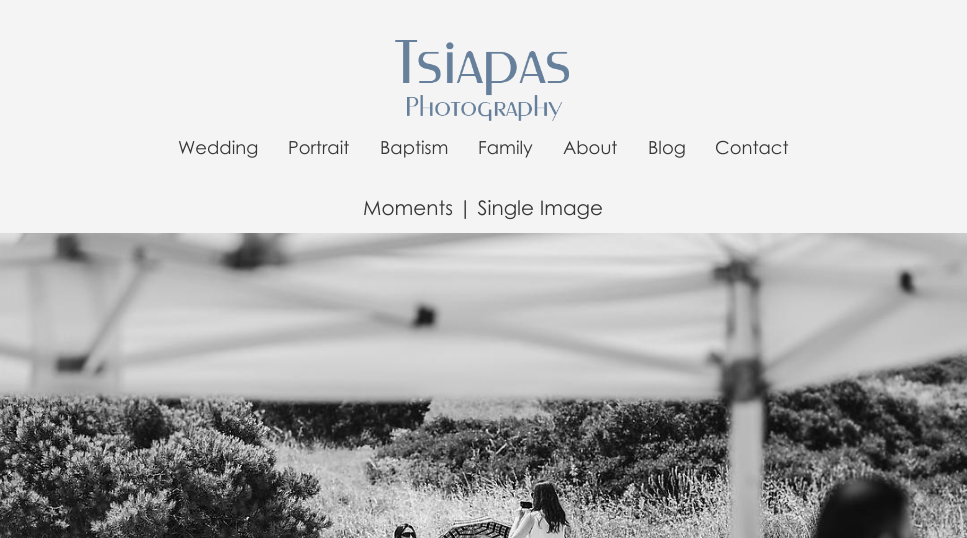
#include <cairo.h>
#include <math.h>
#include <stddef.h>

typedef struct { const char *family; double size; int italic, bold; unsigned color; } style_t;
static cairo_t *ctx;

static void ink(unsigned color) {
    cairo_set_source_rgb(ctx, (color >> 16) / 255.0, (color >> 8 & 255) / 255.0, (color & 255) / 255.0);
}

static void write(double x, double y, const char *s, const style_t *st) {
    cairo_select_font_face(ctx, st->family, st->italic ? CAIRO_FONT_SLANT_ITALIC : CAIRO_FONT_SLANT_NORMAL,
        st->bold ? CAIRO_FONT_WEIGHT_BOLD : CAIRO_FONT_WEIGHT_NORMAL);
    cairo_set_font_size(ctx, st->size);
    ink(st->color);
    cairo_move_to(ctx, x, y);
    cairo_show_text(ctx, s);
}

static void paste(const char *path, double x, double y, double w, double h) {
    cairo_surface_t *image = cairo_image_surface_create_from_png(path);
    cairo_save(ctx);
    cairo_set_source_surface(ctx, image, x, y);
    cairo_rectangle(ctx, x, y, w, h);
    cairo_fill(ctx);
    cairo_restore(ctx);
    cairo_surface_destroy(image);
}

static const style_t s1 = {"Century Gothic", 18, 0, 0, 0x363636};
static const style_t s2 = {"Century Gothic", 20, 0, 0, 0x363636};

int main(void) {
    cairo_surface_t *surface = cairo_image_surface_create(CAIRO_FORMAT_RGB24, 967, 538);
    ctx = cairo_create(surface);
    cairo_font_options_t *options = cairo_font_options_create();
    cairo_font_options_set_hint_metrics(options, CAIRO_HINT_METRICS_OFF);
    cairo_font_options_set_hint_style(options, CAIRO_HINT_STYLE_NONE);
    cairo_set_font_options(ctx, options);
    cairo_set_miter_limit(ctx, 4);
    ink(0xf4f4f4);
    cairo_paint(ctx);
    paste("pic1.png", 395, 40, 174, 81);
    write(178, 154, "Wedding", &s1);
    write(288, 154, "Portrait", &s1);
    write(380, 154, "Baptism", &s1);
    write(478, 154, "Family", &s1);
    write(563, 154, "About", &s1);
    write(648, 154, "Blog", &s1);
    write(715, 154, "Contact", &s1);
    write(363, 215, "Moments | Single Image", &s2);
    paste("pic2.png", 0, 233, 967, 305);
    cairo_surface_write_to_png(surface, "screenshot.png");
    cairo_font_options_destroy(options);
    cairo_destroy(ctx);
    cairo_surface_destroy(surface);
    return 0;
}
